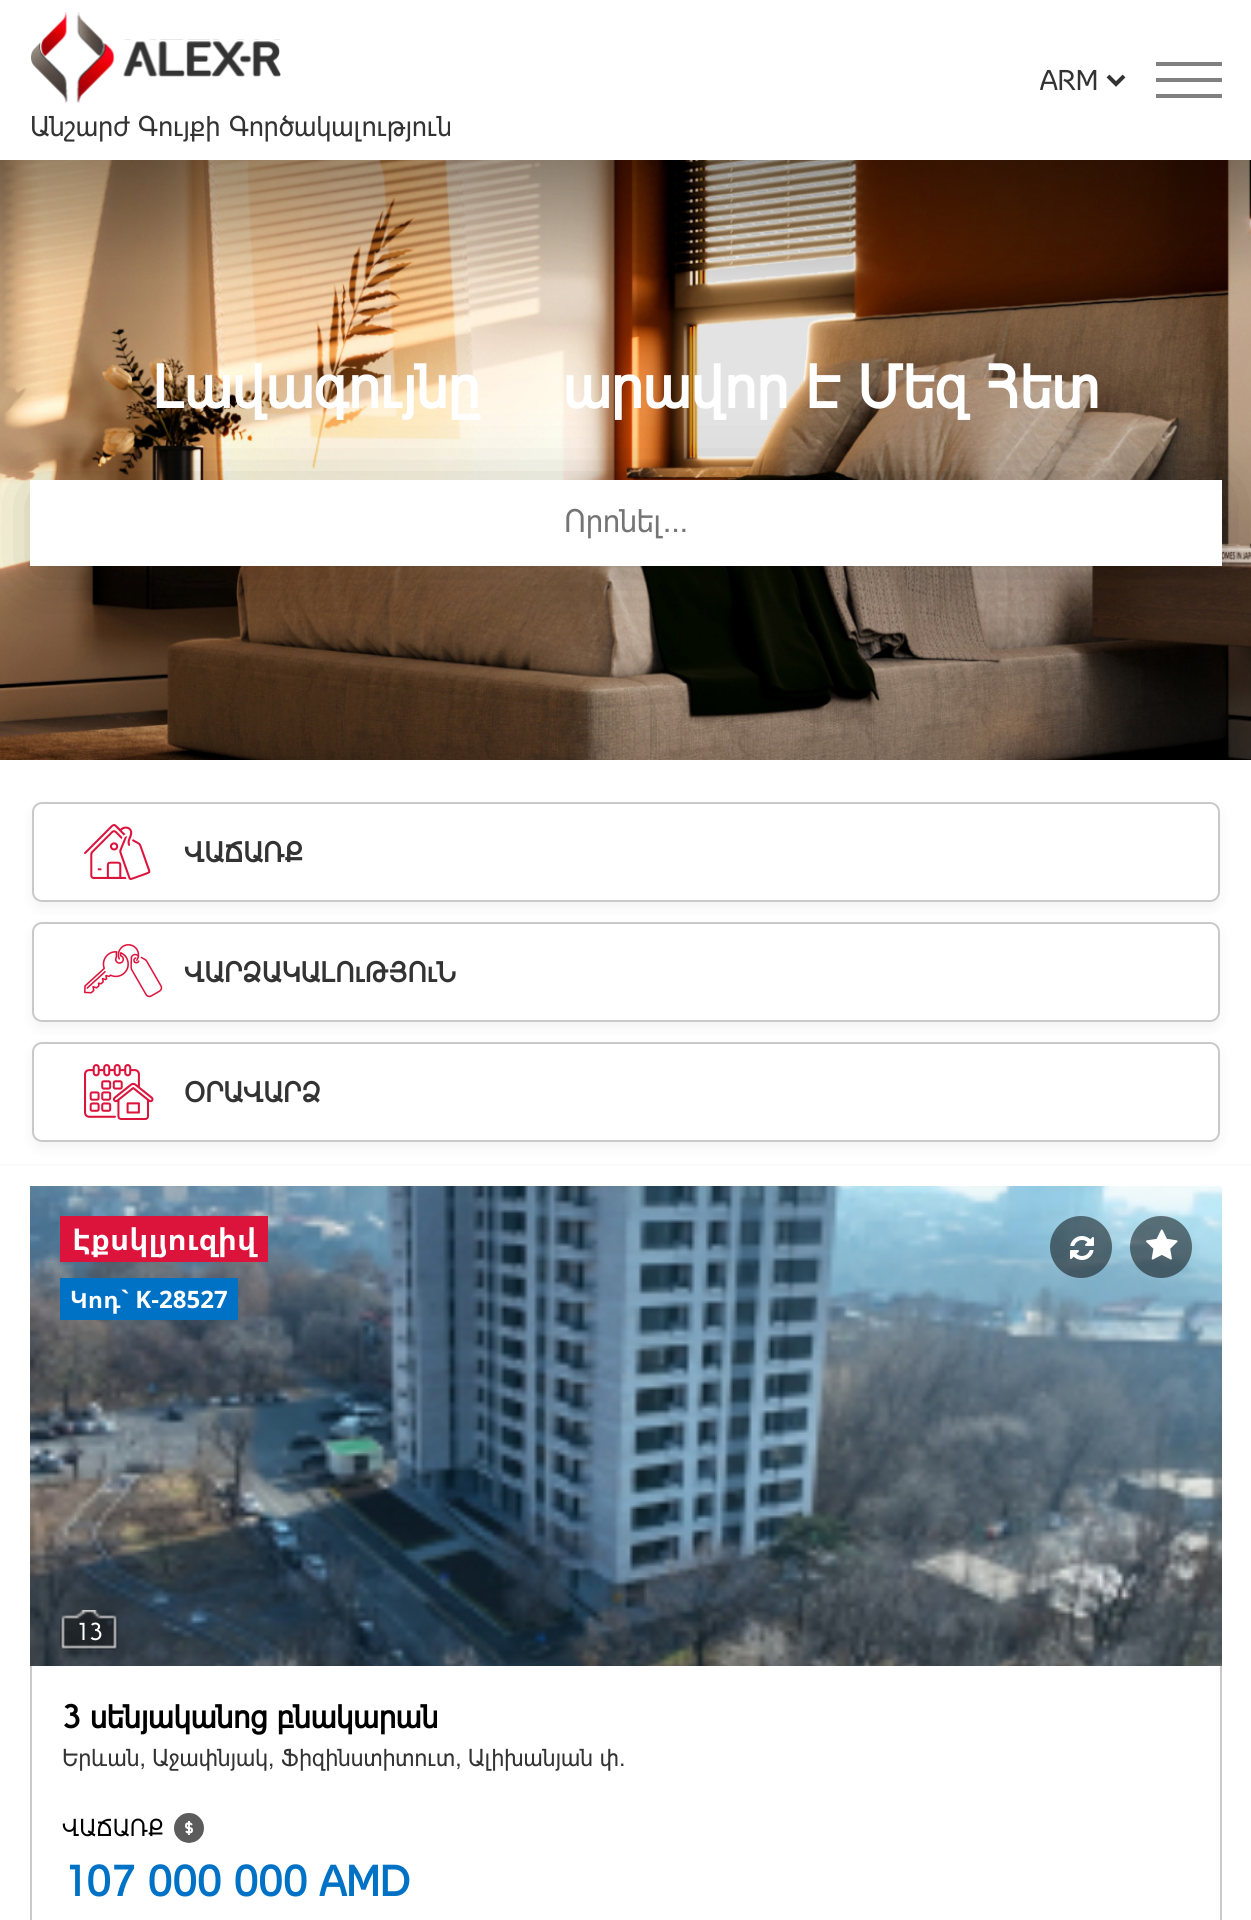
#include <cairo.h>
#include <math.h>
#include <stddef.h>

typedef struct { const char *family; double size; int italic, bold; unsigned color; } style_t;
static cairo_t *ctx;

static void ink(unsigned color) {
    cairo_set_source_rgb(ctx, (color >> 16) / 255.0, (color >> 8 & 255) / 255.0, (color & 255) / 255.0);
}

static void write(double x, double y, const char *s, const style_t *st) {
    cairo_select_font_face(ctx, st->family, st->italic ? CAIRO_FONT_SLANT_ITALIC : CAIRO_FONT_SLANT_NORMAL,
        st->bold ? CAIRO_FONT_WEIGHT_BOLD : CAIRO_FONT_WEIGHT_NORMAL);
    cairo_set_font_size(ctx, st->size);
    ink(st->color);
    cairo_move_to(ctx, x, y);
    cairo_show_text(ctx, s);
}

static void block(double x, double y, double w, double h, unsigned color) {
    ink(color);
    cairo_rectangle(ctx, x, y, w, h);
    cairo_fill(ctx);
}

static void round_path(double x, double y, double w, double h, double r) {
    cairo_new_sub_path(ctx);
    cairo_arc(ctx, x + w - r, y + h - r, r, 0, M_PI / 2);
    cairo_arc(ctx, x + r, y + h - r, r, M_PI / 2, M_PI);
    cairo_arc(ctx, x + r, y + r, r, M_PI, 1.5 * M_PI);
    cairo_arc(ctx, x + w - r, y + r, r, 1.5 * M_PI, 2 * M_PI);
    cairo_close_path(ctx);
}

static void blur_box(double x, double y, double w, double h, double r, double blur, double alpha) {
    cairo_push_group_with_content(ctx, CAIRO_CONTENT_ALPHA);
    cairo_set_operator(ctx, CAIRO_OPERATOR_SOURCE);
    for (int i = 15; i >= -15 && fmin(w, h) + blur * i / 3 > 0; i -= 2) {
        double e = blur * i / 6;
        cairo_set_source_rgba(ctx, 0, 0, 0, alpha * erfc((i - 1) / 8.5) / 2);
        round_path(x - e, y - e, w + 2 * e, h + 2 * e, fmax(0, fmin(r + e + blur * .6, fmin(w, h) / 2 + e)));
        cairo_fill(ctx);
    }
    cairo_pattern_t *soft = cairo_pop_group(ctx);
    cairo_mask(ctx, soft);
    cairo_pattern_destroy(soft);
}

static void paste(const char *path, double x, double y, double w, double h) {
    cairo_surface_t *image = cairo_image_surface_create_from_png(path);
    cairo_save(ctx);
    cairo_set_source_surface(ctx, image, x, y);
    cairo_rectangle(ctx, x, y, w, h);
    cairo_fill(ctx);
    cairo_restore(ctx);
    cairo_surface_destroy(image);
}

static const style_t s1 = {"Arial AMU", 28, 0, 0, 0x333333};
static const style_t s2 = {"Arial AMU", 60, 0, 1, 0xffffff};
static const style_t s3 = {"Arial AMU", 32, 0, 0, 0x757575};
static const style_t s4 = {"Arial AMU", 28, 0, 1, 0x333333};
static const style_t s5 = {"Noto Sans Armenian", 30, 0, 1, 0xffffff};
static const style_t s6 = {"Noto Sans Armenian", 24, 0, 1, 0xffffff};
static const style_t s7 = {"Arial AMU", 24, 0, 0, 0xffffff};
static const style_t s8 = {"Arial AMU", 32, 0, 1, 0x000000};
static const style_t s9 = {"Arial AMU", 24, 0, 0, 0x333333};
static const style_t s10 = {"Arial AMU", 24, 0, 0, 0x000000};
static const style_t s11 = {"Arial AMU", 42, 0, 1, 0x0072c6};

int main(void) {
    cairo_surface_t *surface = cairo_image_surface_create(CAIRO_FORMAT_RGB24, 1251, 1920);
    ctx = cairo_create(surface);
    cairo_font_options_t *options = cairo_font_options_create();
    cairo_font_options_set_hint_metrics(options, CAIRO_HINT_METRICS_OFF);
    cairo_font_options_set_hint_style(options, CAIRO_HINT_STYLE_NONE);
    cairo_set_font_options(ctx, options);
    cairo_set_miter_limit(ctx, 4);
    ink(0xffffff);
    cairo_paint(ctx);
    cairo_new_path(ctx);
    cairo_move_to(ctx, 1108, 76);
    cairo_line_to(ctx, 1116, 84);
    cairo_line_to(ctx, 1124, 76);
    ink(0x333333);
    cairo_set_line_width(ctx, 4);
    cairo_stroke(ctx);
    write(1040, 90, "ARM", &s1);
    block(1156, 62, 66, 4, 0x808080);
    block(1156, 78, 66, 4, 0x808080);
    block(1156, 94, 66, 4, 0x808080);
    paste("pic1.png", 31, 12, 250, 91);
    write(30, 136, "Անշարժ Գույքի Գործակալություն", &s1);
    paste("pic2.png", 0, 160, 1251, 600);
    write(152, 408, "Լավագույնը", &s2);
    write(563, 408, "արավոր Է Մեզ Հետ", &s2);
    ink(0x000000);
    blur_box(30, 488, 1192, 86, 0, 34, 0.25);
    block(30, 480, 1192, 86, 0xffffff);
    write(564, 532, "Որոնել...", &s3);
    cairo_save(ctx);
    cairo_set_fill_rule(ctx, CAIRO_FILL_RULE_EVEN_ODD);
    cairo_new_path(ctx);
    cairo_move_to(ctx, 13, 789);
    cairo_line_to(ctx, 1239, 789);
    cairo_line_to(ctx, 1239, 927);
    cairo_line_to(ctx, 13, 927);
    cairo_close_path(ctx);
    cairo_move_to(ctx, 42, 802);
    cairo_line_to(ctx, 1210, 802);
    cairo_curve_to(ctx, 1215.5, 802, 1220, 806.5, 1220, 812);
    cairo_line_to(ctx, 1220, 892);
    cairo_curve_to(ctx, 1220, 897.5, 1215.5, 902, 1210, 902);
    cairo_line_to(ctx, 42, 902);
    cairo_curve_to(ctx, 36.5, 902, 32, 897.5, 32, 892);
    cairo_line_to(ctx, 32, 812);
    cairo_curve_to(ctx, 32, 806.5, 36.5, 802, 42, 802);
    cairo_close_path(ctx);
    cairo_clip(ctx);
    ink(0x000000);
    blur_box(32, 808, 1188, 100, 10, 6, 0.05);
    cairo_restore(ctx);
    round_path(33, 803, 1186, 98, 9);
    ink(0xc9c9c9);
    cairo_set_line_width(ctx, 2);
    cairo_stroke(ctx);
    paste("pic3.png", 84, 824, 67, 56);
    write(184, 862, "ՎԱՃԱՌՔ", &s4);
    cairo_save(ctx);
    cairo_set_fill_rule(ctx, CAIRO_FILL_RULE_EVEN_ODD);
    cairo_new_path(ctx);
    cairo_move_to(ctx, 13, 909);
    cairo_line_to(ctx, 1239, 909);
    cairo_line_to(ctx, 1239, 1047);
    cairo_line_to(ctx, 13, 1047);
    cairo_close_path(ctx);
    cairo_move_to(ctx, 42, 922);
    cairo_line_to(ctx, 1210, 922);
    cairo_curve_to(ctx, 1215.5, 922, 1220, 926.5, 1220, 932);
    cairo_line_to(ctx, 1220, 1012);
    cairo_curve_to(ctx, 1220, 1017.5, 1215.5, 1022, 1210, 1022);
    cairo_line_to(ctx, 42, 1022);
    cairo_curve_to(ctx, 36.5, 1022, 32, 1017.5, 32, 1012);
    cairo_line_to(ctx, 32, 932);
    cairo_curve_to(ctx, 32, 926.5, 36.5, 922, 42, 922);
    cairo_close_path(ctx);
    cairo_clip(ctx);
    ink(0x000000);
    blur_box(32, 928, 1188, 100, 10, 6, 0.05);
    cairo_restore(ctx);
    round_path(33, 923, 1186, 98, 9);
    ink(0xc9c9c9);
    cairo_stroke(ctx);
    paste("pic4.png", 84, 944, 79, 54);
    write(184, 982, "ՎԱՐՁԱԿԱԼՈւԹՅՈւՆ", &s4);
    block(0, 1164, 1251, 2, 0xfafafa);
    cairo_save(ctx);
    cairo_set_fill_rule(ctx, CAIRO_FILL_RULE_EVEN_ODD);
    cairo_new_path(ctx);
    cairo_move_to(ctx, 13, 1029);
    cairo_line_to(ctx, 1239, 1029);
    cairo_line_to(ctx, 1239, 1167);
    cairo_line_to(ctx, 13, 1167);
    cairo_close_path(ctx);
    cairo_move_to(ctx, 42, 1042);
    cairo_line_to(ctx, 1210, 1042);
    cairo_curve_to(ctx, 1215.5, 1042, 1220, 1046.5, 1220, 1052);
    cairo_line_to(ctx, 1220, 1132);
    cairo_curve_to(ctx, 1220, 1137.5, 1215.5, 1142, 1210, 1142);
    cairo_line_to(ctx, 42, 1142);
    cairo_curve_to(ctx, 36.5, 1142, 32, 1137.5, 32, 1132);
    cairo_line_to(ctx, 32, 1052);
    cairo_curve_to(ctx, 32, 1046.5, 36.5, 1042, 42, 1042);
    cairo_close_path(ctx);
    cairo_clip(ctx);
    ink(0x000000);
    blur_box(32, 1048, 1188, 100, 10, 6, 0.05);
    cairo_restore(ctx);
    round_path(33, 1043, 1186, 98, 9);
    ink(0xc9c9c9);
    cairo_stroke(ctx);
    paste("pic5.png", 84, 1064, 70, 56);
    write(184, 1102, "ՕՐԱՎԱՐՁ", &s4);
    paste("pic6.png", 30, 1186, 1192, 480);
    block(60, 1216, 208, 46, 0xdc143c);
    write(72, 1250, "Էքսկլյուզիվ", &s5);
    cairo_set_source_rgba(ctx, 0, 0, 0, 0.5);
    cairo_new_path(ctx);
    cairo_arc(ctx, 1081, 1247, 31, 0, 2 * M_PI);
    cairo_fill(ctx);
    paste("pic7.png", 1070, 1236, 24, 24);
    cairo_arc(ctx, 1161, 1247, 31, 0, 2 * M_PI);
    cairo_fill(ctx);
    paste("pic8.png", 1146, 1229, 32, 31);
    block(60, 1278, 178, 42, 0x0072c6);
    write(70, 1308, "Կոդ` K-28527", &s6);
    paste("pic9.png", 60, 1610, 58, 40);
    write(75, 1640, "13", &s7);
    block(1220, 1666, 2, 254, 0xc9c9c9);
    block(30, 1666, 2, 254, 0xc9c9c9);
    write(62, 1728, "3 սենյականոց բնակարան", &s8);
    write(62, 1766, "Երևան, Աջափնյակ, Ֆիզինստիտուտ, Ալիխանյան փ.", &s9);
    write(62, 1836, "ՎԱՃԱՌՔ", &s10);
    paste("pic10.png", 174, 1813, 30, 30);
    write(62, 1896, "107 000 000 AMD", &s11);
    cairo_surface_write_to_png(surface, "screenshot.png");
    cairo_font_options_destroy(options);
    cairo_destroy(ctx);
    cairo_surface_destroy(surface);
    return 0;
}
